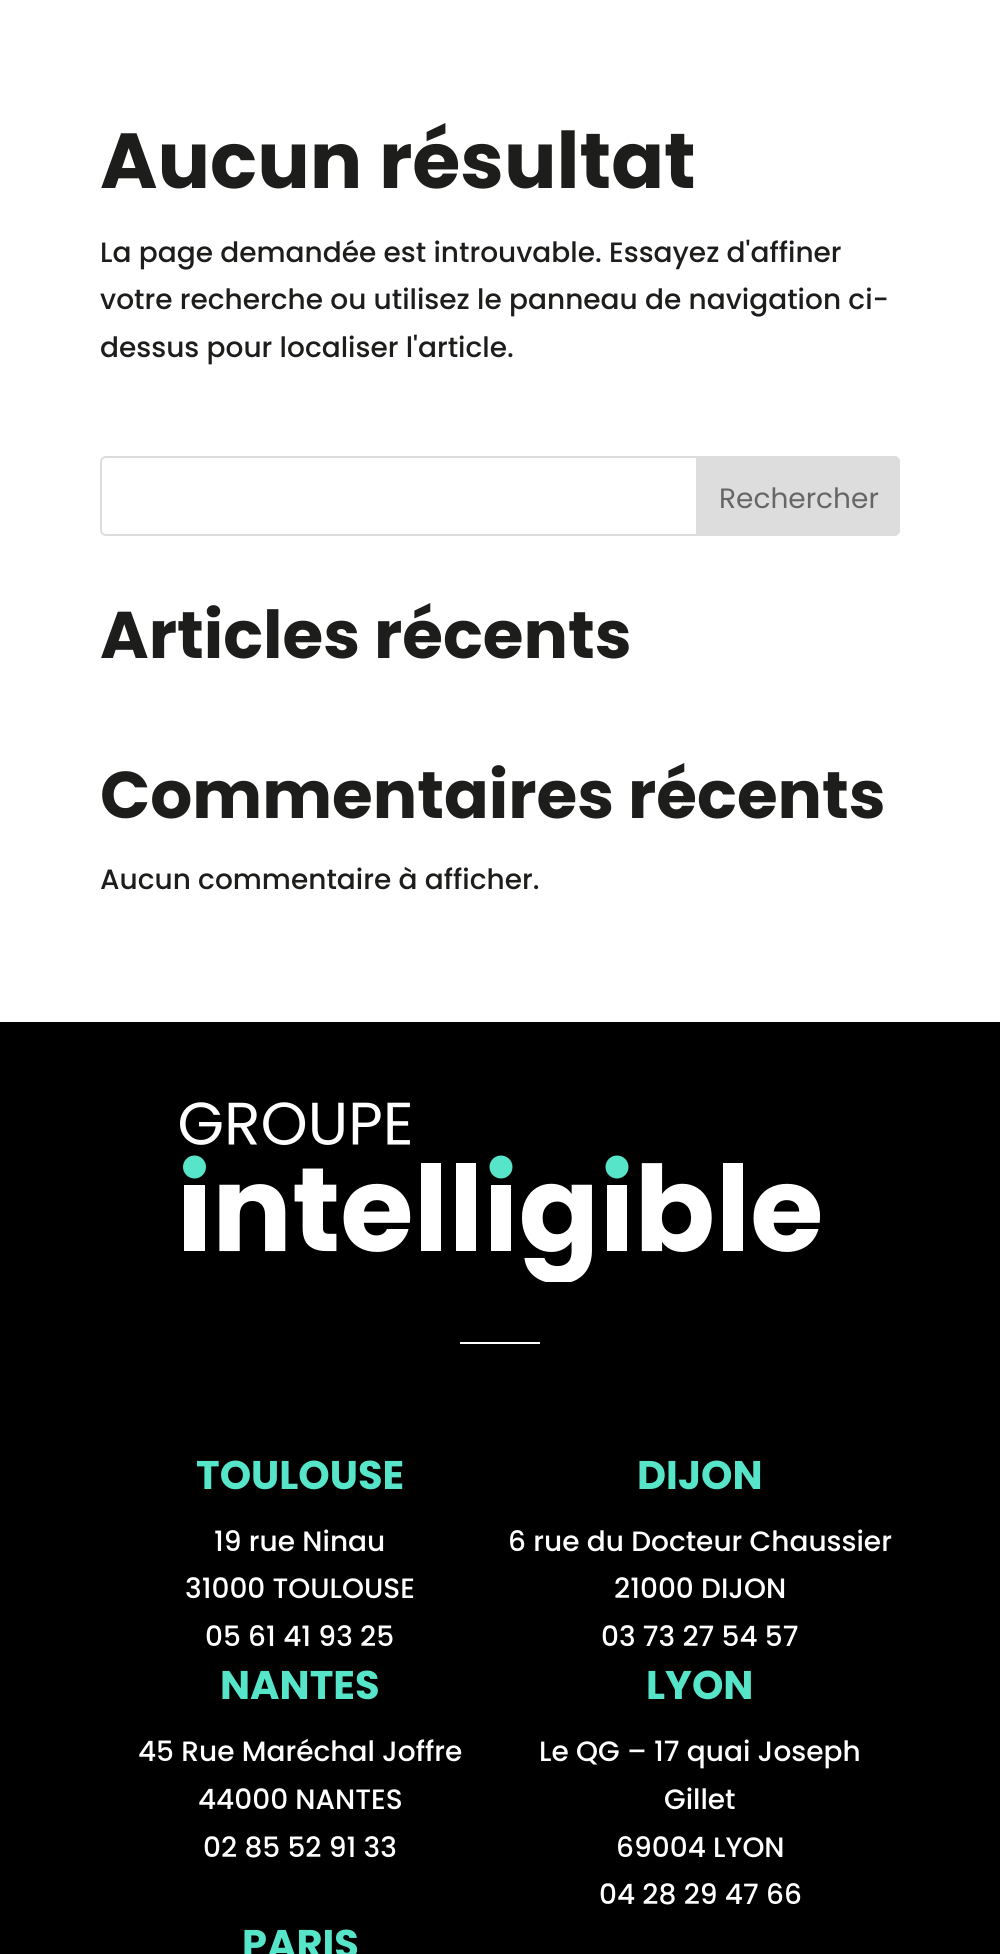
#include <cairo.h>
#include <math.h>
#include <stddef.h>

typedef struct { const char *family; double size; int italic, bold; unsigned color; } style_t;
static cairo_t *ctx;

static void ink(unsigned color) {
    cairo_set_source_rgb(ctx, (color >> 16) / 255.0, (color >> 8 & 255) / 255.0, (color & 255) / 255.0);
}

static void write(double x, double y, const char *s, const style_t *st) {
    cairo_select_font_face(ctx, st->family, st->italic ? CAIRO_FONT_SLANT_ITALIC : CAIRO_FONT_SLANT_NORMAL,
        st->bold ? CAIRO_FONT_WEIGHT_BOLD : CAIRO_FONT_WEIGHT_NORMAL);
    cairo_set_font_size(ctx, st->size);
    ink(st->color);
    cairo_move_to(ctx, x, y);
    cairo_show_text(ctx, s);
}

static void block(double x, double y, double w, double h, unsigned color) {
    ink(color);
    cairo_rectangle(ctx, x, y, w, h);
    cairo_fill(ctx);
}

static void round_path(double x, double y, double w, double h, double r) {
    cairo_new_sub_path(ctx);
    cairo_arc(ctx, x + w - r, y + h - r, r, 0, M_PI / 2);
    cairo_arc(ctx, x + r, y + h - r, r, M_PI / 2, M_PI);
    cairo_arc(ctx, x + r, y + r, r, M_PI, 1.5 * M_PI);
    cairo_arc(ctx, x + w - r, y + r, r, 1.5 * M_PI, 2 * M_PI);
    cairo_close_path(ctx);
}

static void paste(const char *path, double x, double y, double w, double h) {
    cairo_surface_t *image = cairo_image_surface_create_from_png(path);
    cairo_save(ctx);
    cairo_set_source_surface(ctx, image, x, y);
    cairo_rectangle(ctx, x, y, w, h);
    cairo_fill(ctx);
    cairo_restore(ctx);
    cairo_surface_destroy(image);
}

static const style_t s1 = {"Poppins", 78, 0, 1, 0x1d1d1b};
static const style_t s2 = {"Poppins Medium", 28, 0, 0, 0x1d1d1b};
static const style_t s3 = {"Poppins", 28, 0, 0, 0x666666};
static const style_t s4 = {"Poppins", 66, 0, 1, 0x1d1d1b};
static const style_t s5 = {"Poppins", 40, 0, 1, 0x56e5c9};
static const style_t s6 = {"Poppins Medium", 28, 0, 0, 0xffffff};

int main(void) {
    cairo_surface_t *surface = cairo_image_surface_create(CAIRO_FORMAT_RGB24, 1000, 1954);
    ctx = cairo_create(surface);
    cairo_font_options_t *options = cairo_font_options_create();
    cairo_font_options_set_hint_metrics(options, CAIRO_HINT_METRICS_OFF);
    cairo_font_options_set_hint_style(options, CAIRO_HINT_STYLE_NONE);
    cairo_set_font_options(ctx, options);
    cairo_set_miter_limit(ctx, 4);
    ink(0xffffff);
    cairo_paint(ctx);
    write(100, 188, "Aucun résultat", &s1);
    write(100, 262, "La page demandée est introuvable. Essayez d'affiner", &s2);
    write(100, 309, "votre recherche ou utilisez le panneau de navigation ci-", &s2);
    write(100, 357, "dessus pour localiser l'article.", &s2);
    round_path(101, 457, 798, 78, 5);
    ink(0xdddddd);
    cairo_stroke(ctx);
    cairo_new_path(ctx);
    cairo_move_to(ctx, 697, 457);
    cairo_line_to(ctx, 894, 457);
    cairo_curve_to(ctx, 897, 457, 899, 459, 899, 462);
    cairo_line_to(ctx, 899, 530);
    cairo_curve_to(ctx, 899, 533, 897, 535, 894, 535);
    cairo_line_to(ctx, 697, 535);
    cairo_close_path(ctx);
    cairo_fill_preserve(ctx);
    cairo_stroke(ctx);
    write(719, 508, "Rechercher", &s3);
    write(100, 658, "Articles récents", &s4);
    write(100, 818, "Commentaires récents", &s4);
    write(100, 889, "Aucun commentaire à afficher.", &s2);
    block(0, 1022, 1000, 932, 0x000000);
    paste("pic1.png", 180, 1102, 640, 180);
    block(460, 1342, 80, 2, 0xffffff);
    write(196, 1489, "TOULOUSE", &s5);
    write(214, 1551, "19 rue Ninau", &s6);
    write(185, 1598, "31000 TOULOUSE", &s6);
    write(205, 1646, "05 61 41 93 25", &s6);
    write(637, 1489, "DIJON", &s5);
    write(508, 1551, "6 rue du Docteur Chaussier", &s6);
    write(614, 1598, "21000 DIJON", &s6);
    write(601, 1646, "03 73 27 54 57", &s6);
    write(220, 1699, "NANTES", &s5);
    write(138, 1761, "45 Rue Maréchal Joffre", &s6);
    write(198, 1809, "44000 NANTES", &s6);
    write(203, 1857, "02 85 52 91 33", &s6);
    write(646, 1699, "LYON", &s5);
    write(539, 1761, "Le QG – 17 quai Joseph", &s6);
    write(664, 1809, "Gillet", &s6);
    write(616, 1857, "69004 LYON", &s6);
    write(599, 1904, "04 28 29 47 66", &s6);
    write(242, 1958, "PARIS", &s5);
    cairo_surface_write_to_png(surface, "screenshot.png");
    cairo_font_options_destroy(options);
    cairo_destroy(ctx);
    cairo_surface_destroy(surface);
    return 0;
}
